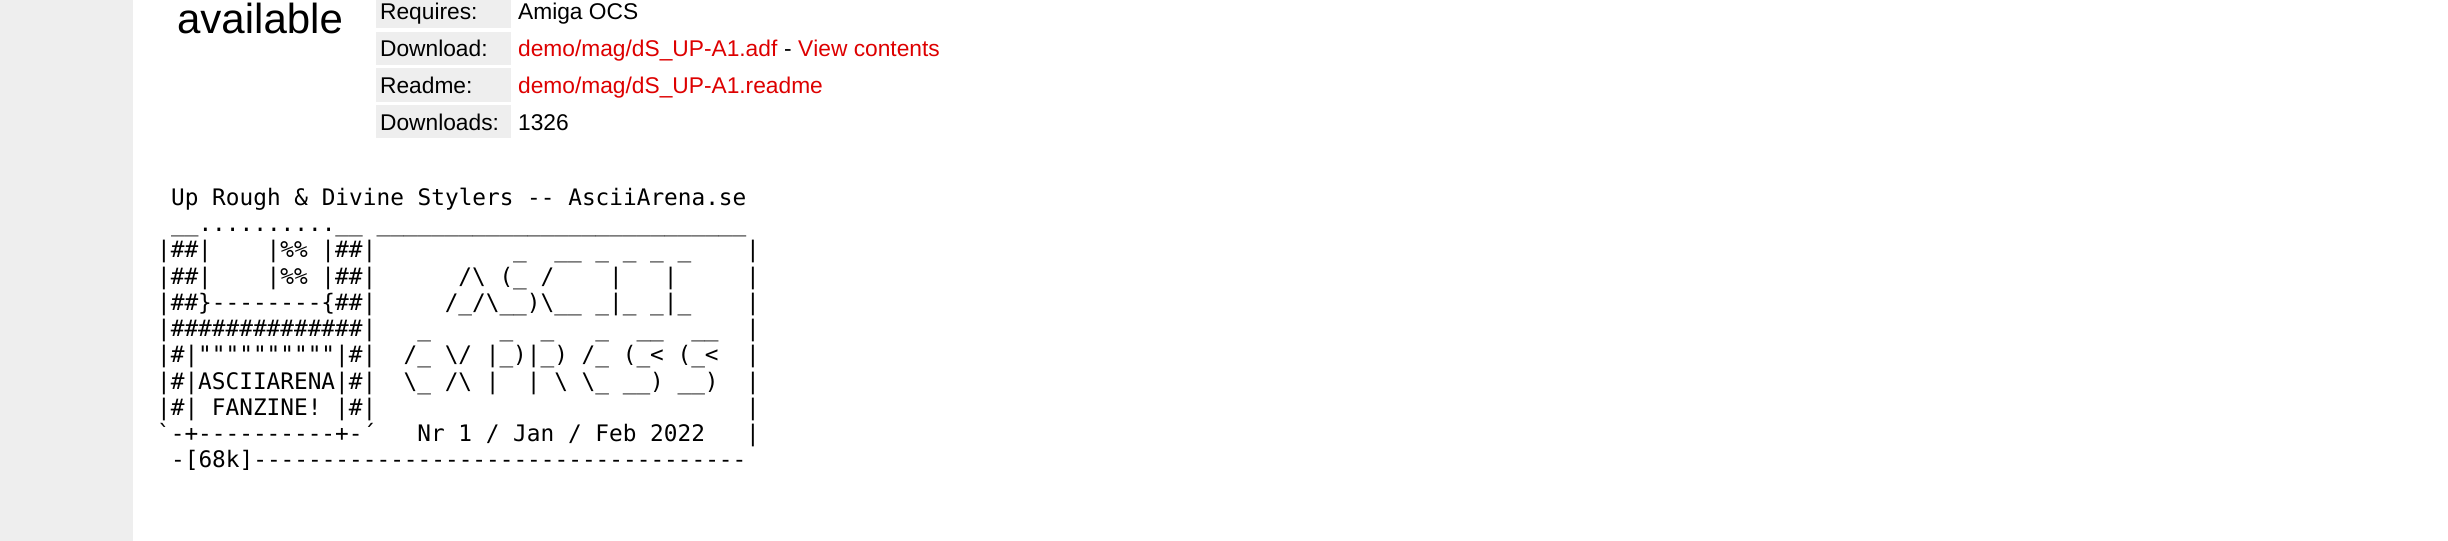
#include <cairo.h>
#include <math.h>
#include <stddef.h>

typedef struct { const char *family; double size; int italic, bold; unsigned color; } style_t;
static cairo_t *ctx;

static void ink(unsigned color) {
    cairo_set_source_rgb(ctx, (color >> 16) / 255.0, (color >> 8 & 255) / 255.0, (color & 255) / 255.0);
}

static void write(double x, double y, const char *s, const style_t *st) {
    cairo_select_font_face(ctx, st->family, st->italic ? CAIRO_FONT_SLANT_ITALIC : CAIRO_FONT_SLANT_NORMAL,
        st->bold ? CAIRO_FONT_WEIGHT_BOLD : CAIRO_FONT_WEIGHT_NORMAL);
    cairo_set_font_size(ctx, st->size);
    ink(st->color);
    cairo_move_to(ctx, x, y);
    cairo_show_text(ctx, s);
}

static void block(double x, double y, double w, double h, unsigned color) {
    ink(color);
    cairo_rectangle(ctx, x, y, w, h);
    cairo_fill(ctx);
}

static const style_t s1 = {"Liberation Sans", 42, 0, 0, 0x000000};
static const style_t s2 = {"Liberation Sans", 22.75, 0, 0, 0x000000};
static const style_t s3 = {"Liberation Sans", 22.75, 0, 0, 0xdd0000};
static const style_t s4 = {"DejaVu Sans Mono", 22.75, 0, 0, 0x000000};

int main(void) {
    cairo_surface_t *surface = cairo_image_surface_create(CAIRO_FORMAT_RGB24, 2448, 541);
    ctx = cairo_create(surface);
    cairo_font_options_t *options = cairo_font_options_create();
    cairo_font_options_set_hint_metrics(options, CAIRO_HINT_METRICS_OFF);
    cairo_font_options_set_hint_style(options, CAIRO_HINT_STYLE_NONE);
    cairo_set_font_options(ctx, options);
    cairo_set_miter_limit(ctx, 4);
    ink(0xffffff);
    cairo_paint(ctx);
    block(0, 0, 133, 541, 0xeeeeee);
    write(177, 33, "available", &s1);
    block(376, 0, 135, 28, 0xeeeeee);
    write(380, 19, "Requires:", &s2);
    write(518, 19, "Amiga OCS", &s2);
    block(376, 32, 135, 33, 0xeeeeee);
    write(380, 56, "Download:", &s2);
    write(518, 56, "demo/mag/dS_UP-A1.adf", &s3);
    write(784, 56, "-", &s2);
    write(798, 56, "View contents", &s3);
    block(376, 68, 135, 34, 0xeeeeee);
    write(380, 93, "Readme:", &s2);
    write(518, 93, "demo/mag/dS_UP-A1.readme", &s3);
    block(376, 105, 135, 33, 0xeeeeee);
    write(380, 130, "Downloads:", &s2);
    write(518, 130, "1326", &s2);
    write(171, 205, "Up Rough & Divine Stylers -- AsciiArena.se", &s4);
    write(171, 231, "__..........__ ___________________________", &s4);
    write(157, 257, "|##|    |%% |##|          _  __ _ _ _ _    |", &s4);
    write(157, 284, "|##|    |%% |##|      /\\ (_ /    |   |     |", &s4);
    write(157, 310, "|##}--------{##|     /_/\\__)\\__ _|_ _|_    |", &s4);
    write(157, 336, "|##############|   _     _  _   _  __  __  |", &s4);
    write(157, 362, "|#|\"\"\"\"\"\"\"\"\"\"|#|  /_ \\/ |_)|_) /_ (_< (_<  |", &s4);
    write(157, 389, "|#|ASCIIARENA|#|  \\_ /\\ |  | \\ \\_ __) __)  |", &s4);
    write(157, 415, "|#| FANZINE! |#|                           |", &s4);
    write(157, 441, "`-+----------+-´   Nr 1 / Jan / Feb 2022   |", &s4);
    write(171, 467, "-[68k]------------------------------------", &s4);
    cairo_surface_write_to_png(surface, "screenshot.png");
    cairo_font_options_destroy(options);
    cairo_destroy(ctx);
    cairo_surface_destroy(surface);
    return 0;
}
